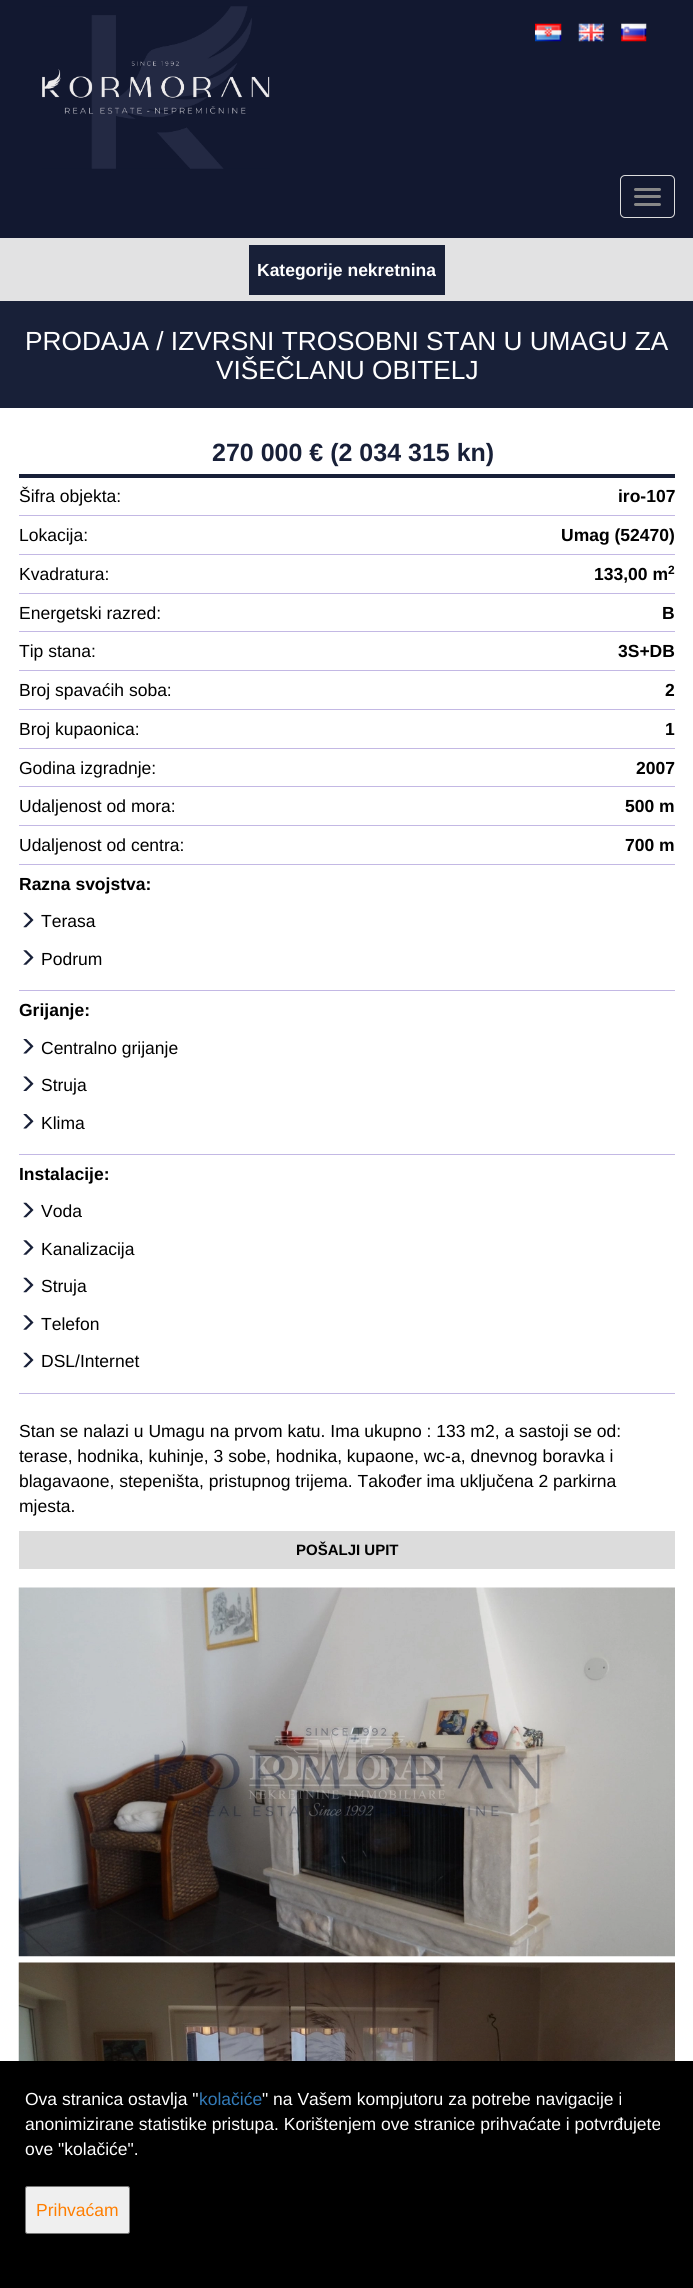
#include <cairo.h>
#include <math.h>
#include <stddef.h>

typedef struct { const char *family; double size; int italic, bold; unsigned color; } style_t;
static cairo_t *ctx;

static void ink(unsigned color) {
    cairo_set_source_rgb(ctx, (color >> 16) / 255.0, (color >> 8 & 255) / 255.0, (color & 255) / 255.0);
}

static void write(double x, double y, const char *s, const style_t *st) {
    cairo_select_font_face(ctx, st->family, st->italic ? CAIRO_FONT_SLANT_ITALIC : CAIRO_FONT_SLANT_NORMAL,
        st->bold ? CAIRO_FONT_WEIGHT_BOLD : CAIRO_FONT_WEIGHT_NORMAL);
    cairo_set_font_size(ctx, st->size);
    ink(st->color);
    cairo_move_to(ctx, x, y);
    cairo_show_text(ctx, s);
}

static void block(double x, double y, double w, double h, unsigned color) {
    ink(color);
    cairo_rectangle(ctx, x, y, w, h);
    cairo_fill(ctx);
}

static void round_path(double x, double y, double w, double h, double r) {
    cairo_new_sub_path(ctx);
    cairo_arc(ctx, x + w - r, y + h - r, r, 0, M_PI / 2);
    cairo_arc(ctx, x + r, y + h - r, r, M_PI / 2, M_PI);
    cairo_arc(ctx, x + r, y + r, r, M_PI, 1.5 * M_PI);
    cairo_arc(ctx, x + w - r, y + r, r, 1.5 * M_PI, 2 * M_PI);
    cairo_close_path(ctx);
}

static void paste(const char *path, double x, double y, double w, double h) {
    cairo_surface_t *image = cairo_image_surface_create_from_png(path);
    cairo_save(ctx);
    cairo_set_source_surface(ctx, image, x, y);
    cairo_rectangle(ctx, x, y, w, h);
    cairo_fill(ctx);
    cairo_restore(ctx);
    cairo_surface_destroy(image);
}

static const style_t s1 = {"Liberation Sans", 17.5, 0, 1, 0xffffff};
static const style_t s2 = {"Liberation Sans", 26.25, 0, 0, 0xffffff};
static const style_t s3 = {"Liberation Sans", 25, 0, 1, 0x182038};
static const style_t s4 = {"Liberation Sans", 17.5, 0, 0, 0x000000};
static const style_t s5 = {"Liberation Sans", 17.5, 0, 1, 0x000000};
static const style_t s6 = {"Liberation Sans", 12, 0, 1, 0x000000};
static const style_t s7 = {"Liberation Sans", 15, 0, 1, 0x000000};
static const style_t s8 = {"Liberation Sans", 17.5, 0, 0, 0xffffff};
static const style_t s9 = {"Liberation Sans", 17.5, 0, 0, 0x337ab7};
static const style_t s10 = {"Liberation Sans", 17.5, 0, 0, 0xff7e00};

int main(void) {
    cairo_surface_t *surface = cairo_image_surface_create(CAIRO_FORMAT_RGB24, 693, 2288);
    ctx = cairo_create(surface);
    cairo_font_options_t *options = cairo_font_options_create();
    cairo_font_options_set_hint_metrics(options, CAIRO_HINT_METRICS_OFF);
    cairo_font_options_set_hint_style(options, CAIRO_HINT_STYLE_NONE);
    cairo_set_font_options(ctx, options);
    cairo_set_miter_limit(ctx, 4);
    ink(0xffffff);
    cairo_paint(ctx);
    block(0, 0, 693, 238, 0x121830);
    paste("pic1.png", 42, 6, 228, 163);
    round_path(620.5, 175.5, 54, 42, 4.5);
    ink(0xdddddd);
    cairo_set_line_width(ctx, 1);
    cairo_stroke(ctx);
    ink(0x888888);
    round_path(634, 188, 27, 3, 1.5);
    cairo_fill(ctx);
    round_path(634, 195, 27, 3, 1.5);
    cairo_fill(ctx);
    round_path(634, 203, 27, 3, 1.5);
    cairo_fill(ctx);
    paste("pic2.png", 535, 23, 27, 19);
    paste("pic3.png", 578, 23, 26, 19);
    paste("pic4.png", 621, 23, 26, 19);
    block(0, 238, 693, 63, 0xe2e2e3);
    block(249, 245, 196, 50, 0x182038);
    write(257, 276, "Kategorije nekretnina", &s1);
    block(0, 301, 693, 107, 0x182038);
    write(25, 350, "PRODAJA / IZVRSNI TROSOBNI STAN U UMAGU ZA", &s2);
    write(216, 379, "VIŠEČLANU OBITELJ", &s2);
    block(19, 474, 656, 4, 0x182038);
    write(212, 461, "270 000 € (2 034 315 kn)", &s3);
    block(19, 515, 656, 1, 0xc3b8e4);
    write(19, 502, "Šifra objekta:", &s4);
    write(618, 502, "iro-107", &s5);
    block(19, 554, 656, 1, 0xc3b8e4);
    write(19, 541, "Lokacija:", &s4);
    write(561, 541, "Umag (52470)", &s5);
    block(19, 593, 656, 1, 0xc3b8e4);
    write(19, 580, "Kvadratura:", &s4);
    write(594, 580, "133,00 m", &s5);
    write(668, 574, "2", &s6);
    block(19, 631, 656, 1, 0xc3b8e4);
    write(19, 619, "Energetski razred:", &s4);
    write(662, 619, "B", &s5);
    block(19, 670, 656, 1, 0xc3b8e4);
    write(19, 657, "Tip stana:", &s4);
    write(618, 657, "3S+DB", &s5);
    block(19, 709, 656, 1, 0xc3b8e4);
    write(19, 696, "Broj spavaćih soba:", &s4);
    write(665, 696, "2", &s5);
    block(19, 748, 656, 1, 0xc3b8e4);
    write(19, 735, "Broj kupaonica:", &s4);
    write(665, 735, "1", &s5);
    block(19, 786, 656, 1, 0xc3b8e4);
    write(19, 774, "Godina izgradnje:", &s4);
    write(636, 774, "2007", &s5);
    block(19, 825, 656, 1, 0xc3b8e4);
    write(19, 812, "Udaljenost od mora:", &s4);
    write(625, 812, "500 m", &s5);
    block(19, 864, 656, 1, 0xc3b8e4);
    write(19, 851, "Udaljenost od centra:", &s4);
    write(625, 851, "700 m", &s5);
    block(19, 990, 656, 1, 0xc3b8e4);
    write(19, 890, "Razna svojstva:", &s5);
    paste("pic5.png", 23, 912, 11, 16);
    write(41, 927, "Terasa", &s4);
    paste("pic6.png", 23, 950, 11, 15);
    write(41, 965, "Podrum", &s4);
    block(19, 1154, 656, 1, 0xc3b8e4);
    write(19, 1016, "Grijanje:", &s5);
    paste("pic7.png", 23, 1039, 11, 15);
    write(41, 1054, "Centralno grijanje", &s4);
    paste("pic8.png", 23, 1076, 11, 15);
    write(41, 1091, "Struja", &s4);
    paste("pic7.png", 23, 1114, 11, 15);
    write(41, 1129, "Klima", &s4);
    block(19, 1393, 656, 1, 0xc3b8e4);
    write(19, 1180, "Instalacije:", &s5);
    paste("pic5.png", 23, 1202, 11, 16);
    write(41, 1217, "Voda", &s4);
    paste("pic6.png", 23, 1240, 11, 15);
    write(41, 1255, "Kanalizacija", &s4);
    paste("pic5.png", 23, 1277, 11, 16);
    write(41, 1292, "Struja", &s4);
    paste("pic6.png", 23, 1315, 11, 15);
    write(41, 1330, "Telefon", &s4);
    paste("pic5.png", 23, 1352, 11, 16);
    write(41, 1367, "DSL/Internet", &s4);
    write(19, 1437, "Stan se nalazi u Umagu na prvom katu. Ima ukupno : 133 m2, a sastoji se od:", &s4);
    write(19, 1462, "terase, hodnika, kuhinje, 3 sobe, hodnika, kupaone, wc-a, dnevnog boravka i", &s4);
    write(19, 1487, "blagavaone, stepeništa, pristupnog trijema. Također ima uključena 2 parkirna", &s4);
    write(19, 1512, "mjesta.", &s4);
    block(19, 1531, 656, 38, 0xdcdcdc);
    write(296, 1555, "POŠALJI UPIT", &s7);
    paste("pic9.png", 18, 1587, 657, 370);
    paste("pic10.png", 18, 1962, 657, 99);
    block(0, 2061, 693, 227, 0x000000);
    write(25, 2105, "Ova stranica ostavlja \"", &s8);
    write(199, 2105, "kolačiće", &s9);
    write(262, 2105, "\" na Vašem kompjutoru za potrebe navigacije i", &s8);
    write(25, 2130, "anonimizirane statistike pristupa. Korištenjem ove stranice prihvaćate i potvrđujete", &s8);
    write(25, 2155, "ove \"kolačiće\".", &s8);
    ink(0xefefef);
    round_path(25.5, 2186.5, 104, 47, 2);
    cairo_fill_preserve(ctx);
    ink(0x767676);
    cairo_stroke(ctx);
    write(36, 2216, "Prihvaćam", &s10);
    cairo_surface_write_to_png(surface, "screenshot.png");
    cairo_font_options_destroy(options);
    cairo_destroy(ctx);
    cairo_surface_destroy(surface);
    return 0;
}
